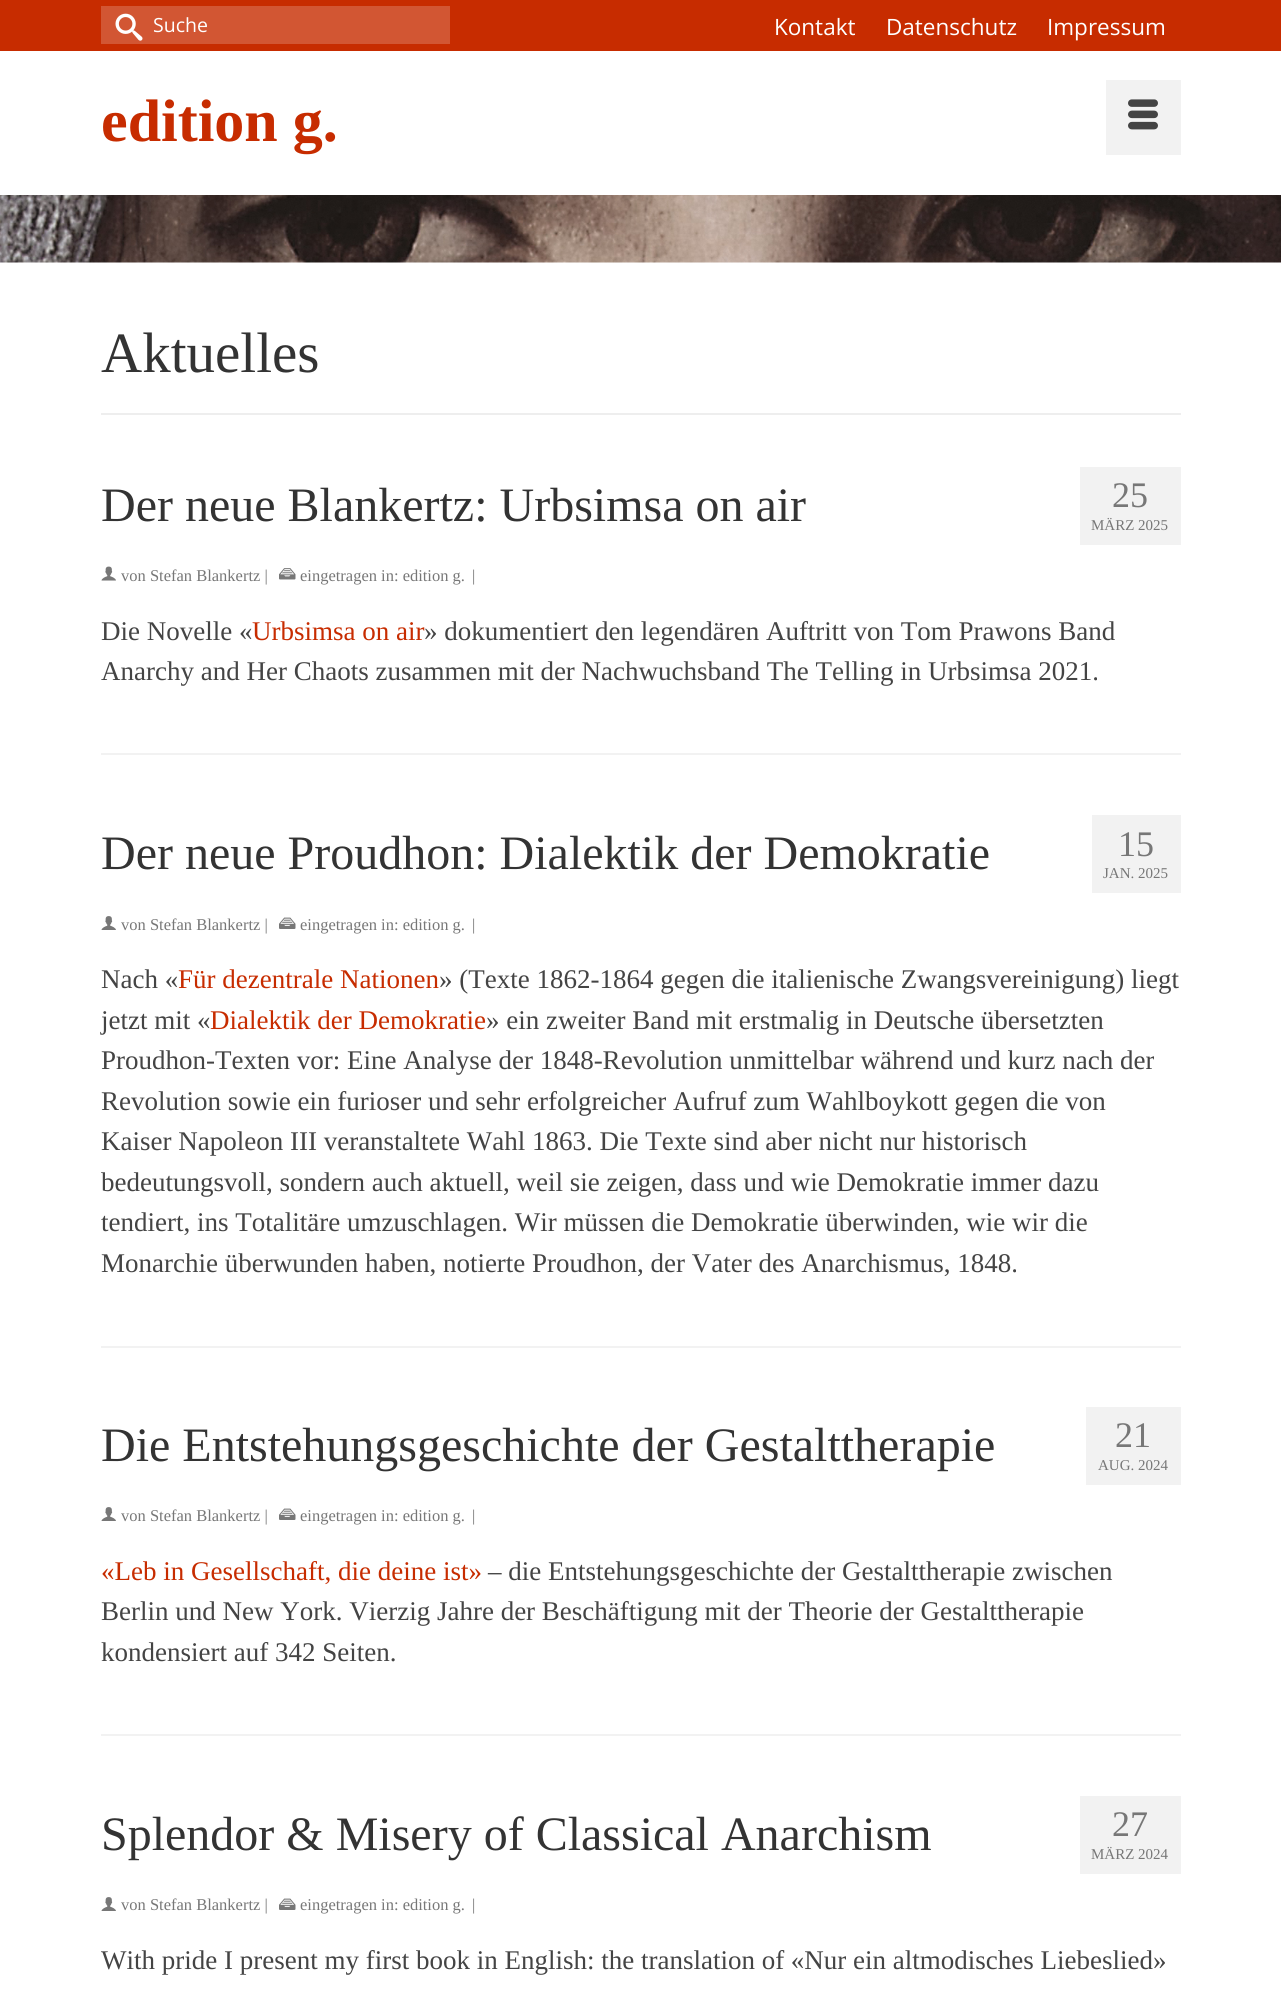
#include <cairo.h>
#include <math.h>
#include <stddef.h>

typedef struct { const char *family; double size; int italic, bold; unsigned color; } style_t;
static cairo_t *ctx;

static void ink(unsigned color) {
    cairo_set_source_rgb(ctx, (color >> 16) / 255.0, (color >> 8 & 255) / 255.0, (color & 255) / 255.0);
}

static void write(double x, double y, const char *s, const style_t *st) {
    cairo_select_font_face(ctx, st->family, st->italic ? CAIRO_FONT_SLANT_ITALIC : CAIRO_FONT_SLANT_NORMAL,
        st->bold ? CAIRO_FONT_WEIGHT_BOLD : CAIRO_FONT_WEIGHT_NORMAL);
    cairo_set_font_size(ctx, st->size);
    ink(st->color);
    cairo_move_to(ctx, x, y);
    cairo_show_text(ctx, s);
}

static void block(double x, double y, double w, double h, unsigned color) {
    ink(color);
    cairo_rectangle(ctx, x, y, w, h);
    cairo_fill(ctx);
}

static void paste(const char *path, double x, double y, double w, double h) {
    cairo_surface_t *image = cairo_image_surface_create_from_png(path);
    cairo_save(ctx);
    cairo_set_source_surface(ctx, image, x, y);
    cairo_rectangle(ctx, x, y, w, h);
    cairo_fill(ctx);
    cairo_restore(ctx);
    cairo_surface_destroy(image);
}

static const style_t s1 = {"Open Sans", 19.5, 0, 0, 0xffffff};
static const style_t s2 = {"Open Sans", 22.5, 0, 0, 0xffffff};
static const style_t s3 = {"Liberation Serif", 60, 0, 1, 0xc72c00};
static const style_t s4 = {"Liberation Serif", 57, 0, 0, 0x333333};
static const style_t s5 = {"Liberation Serif", 48, 0, 0, 0x333333};
static const style_t s6 = {"Liberation Serif", 16.5, 0, 0, 0x777777};
static const style_t s7 = {"Liberation Serif", 36, 0, 0, 0x777777};
static const style_t s8 = {"Liberation Serif", 15, 0, 0, 0x777777};
static const style_t s9 = {"Liberation Serif", 27, 0, 0, 0x444444};
static const style_t s10 = {"Liberation Serif", 27, 0, 0, 0xc72c00};

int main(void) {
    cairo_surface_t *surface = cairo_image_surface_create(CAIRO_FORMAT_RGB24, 1281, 2002);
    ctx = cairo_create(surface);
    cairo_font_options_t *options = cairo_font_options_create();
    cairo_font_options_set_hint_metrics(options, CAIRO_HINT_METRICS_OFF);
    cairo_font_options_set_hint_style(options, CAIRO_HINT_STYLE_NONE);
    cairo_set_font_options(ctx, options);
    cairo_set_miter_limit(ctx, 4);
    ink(0xffffff);
    cairo_paint(ctx);
    block(0, 0, 1281, 51, 0xc72c00);
    block(101, 6, 349, 38, 0xd25633);
    paste("pic1.png", 115, 13, 28, 28);
    write(153, 32, "Suche", &s1);
    write(774, 35, "Kontakt", &s2);
    write(886, 35, "Datenschutz", &s2);
    write(1047, 35, "Impressum", &s2);
    write(101, 141, "edition g.", &s3);
    block(1106, 80, 75, 75, 0xf2f2f2);
    paste("pic2.png", 1128, 99, 30, 31);
    paste("pic3.png", 0, 195, 1281, 68);
    write(101, 372, "Aktuelles", &s4);
    block(101, 413, 1080, 2, 0xeeeeee);
    write(101, 521, "Der neue Blankertz: Urbsimsa on air", &s5);
    paste("pic4.png", 101, 566, 15, 15);
    write(121, 581, "von Stefan Blankertz |", &s6);
    paste("pic5.png", 279, 568, 17, 12);
    write(300, 581, "eingetragen in: edition g.", &s6);
    write(472, 581, "|", &s6);
    block(1080, 467, 101, 78, 0xf2f2f2);
    write(1112, 507, "25", &s7);
    write(1091, 530, "MÄRZ 2025", &s8);
    write(101, 640, "Die Novelle «", &s9);
    write(252, 640, "Urbsimsa on air", &s10);
    write(424, 640, "» dokumentiert den legendären Auftritt von Tom Prawons Band", &s9);
    write(101, 680, "Anarchy and Her Chaots zusammen mit der Nachwuchsband The Telling in Urbsimsa 2021.", &s9);
    block(101, 753, 1080, 2, 0xf2f2f2);
    write(101, 869, "Der neue Proudhon: Dialektik der Demokratie", &s5);
    paste("pic6.png", 101, 916, 15, 14);
    write(121, 930, "von Stefan Blankertz |", &s6);
    paste("pic7.png", 279, 917, 17, 12);
    write(300, 930, "eingetragen in: edition g.", &s6);
    write(472, 930, "|", &s6);
    block(1092, 815, 89, 78, 0xf2f2f2);
    write(1118, 856, "15", &s7);
    write(1103, 878, "JAN. 2025", &s8);
    write(101, 988, "Nach «", &s9);
    write(178, 988, "Für dezentrale Nationen", &s10);
    write(439, 988, "» (Texte 1862-1864 gegen die italienische Zwangsvereinigung) liegt", &s9);
    write(101, 1029, "jetzt mit «", &s9);
    write(210, 1029, "Dialektik der Demokratie", &s10);
    write(486, 1029, "» ein zweiter Band mit erstmalig in Deutsche übersetzten", &s9);
    write(101, 1069, "Proudhon-Texten vor: Eine Analyse der 1848-Revolution unmittelbar während und kurz nach der", &s9);
    write(101, 1110, "Revolution sowie ein furioser und sehr erfolgreicher Aufruf zum Wahlboykott gegen die von", &s9);
    write(101, 1150, "Kaiser Napoleon III veranstaltete Wahl 1863. Die Texte sind aber nicht nur historisch", &s9);
    write(101, 1191, "bedeutungsvoll, sondern auch aktuell, weil sie zeigen, dass und wie Demokratie immer dazu", &s9);
    write(101, 1231, "tendiert, ins Totalitäre umzuschlagen. Wir müssen die Demokratie überwinden, wie wir die", &s9);
    write(101, 1272, "Monarchie überwunden haben, notierte Proudhon, der Vater des Anarchismus, 1848.", &s9);
    block(101, 1346, 1080, 2, 0xf2f2f2);
    write(101, 1461, "Die Entstehungsgeschichte der Gestalttherapie", &s5);
    paste("pic6.png", 101, 1507, 15, 14);
    write(121, 1521, "von Stefan Blankertz |", &s6);
    paste("pic7.png", 279, 1508, 17, 12);
    write(300, 1521, "eingetragen in: edition g.", &s6);
    write(472, 1521, "|", &s6);
    block(1086, 1407, 95, 78, 0xf2f2f2);
    write(1115, 1447, "21", &s7);
    write(1098, 1470, "AUG. 2024", &s8);
    write(101, 1580, "«Leb in Gesellschaft, die deine ist»", &s10);
    write(488, 1580, "– die Entstehungsgeschichte der Gestalttherapie zwischen", &s9);
    write(101, 1620, "Berlin und New York. Vierzig Jahre der Beschäftigung mit der Theorie der Gestalttherapie", &s9);
    write(101, 1661, "kondensiert auf 342 Seiten.", &s9);
    block(101, 1734, 1080, 2, 0xf2f2f2);
    write(101, 1850, "Splendor & Misery of Classical Anarchism", &s5);
    paste("pic6.png", 101, 1897, 15, 14);
    write(121, 1910, "von Stefan Blankertz |", &s6);
    paste("pic7.png", 279, 1898, 17, 12);
    write(300, 1910, "eingetragen in: edition g.", &s6);
    write(472, 1910, "|", &s6);
    block(1080, 1796, 101, 78, 0xf2f2f2);
    write(1112, 1836, "27", &s7);
    write(1091, 1859, "MÄRZ 2024", &s8);
    write(101, 1969, "With pride I present my first book in English: the translation of «Nur ein altmodisches Liebeslied»", &s9);
    cairo_surface_write_to_png(surface, "screenshot.png");
    cairo_font_options_destroy(options);
    cairo_destroy(ctx);
    cairo_surface_destroy(surface);
    return 0;
}
